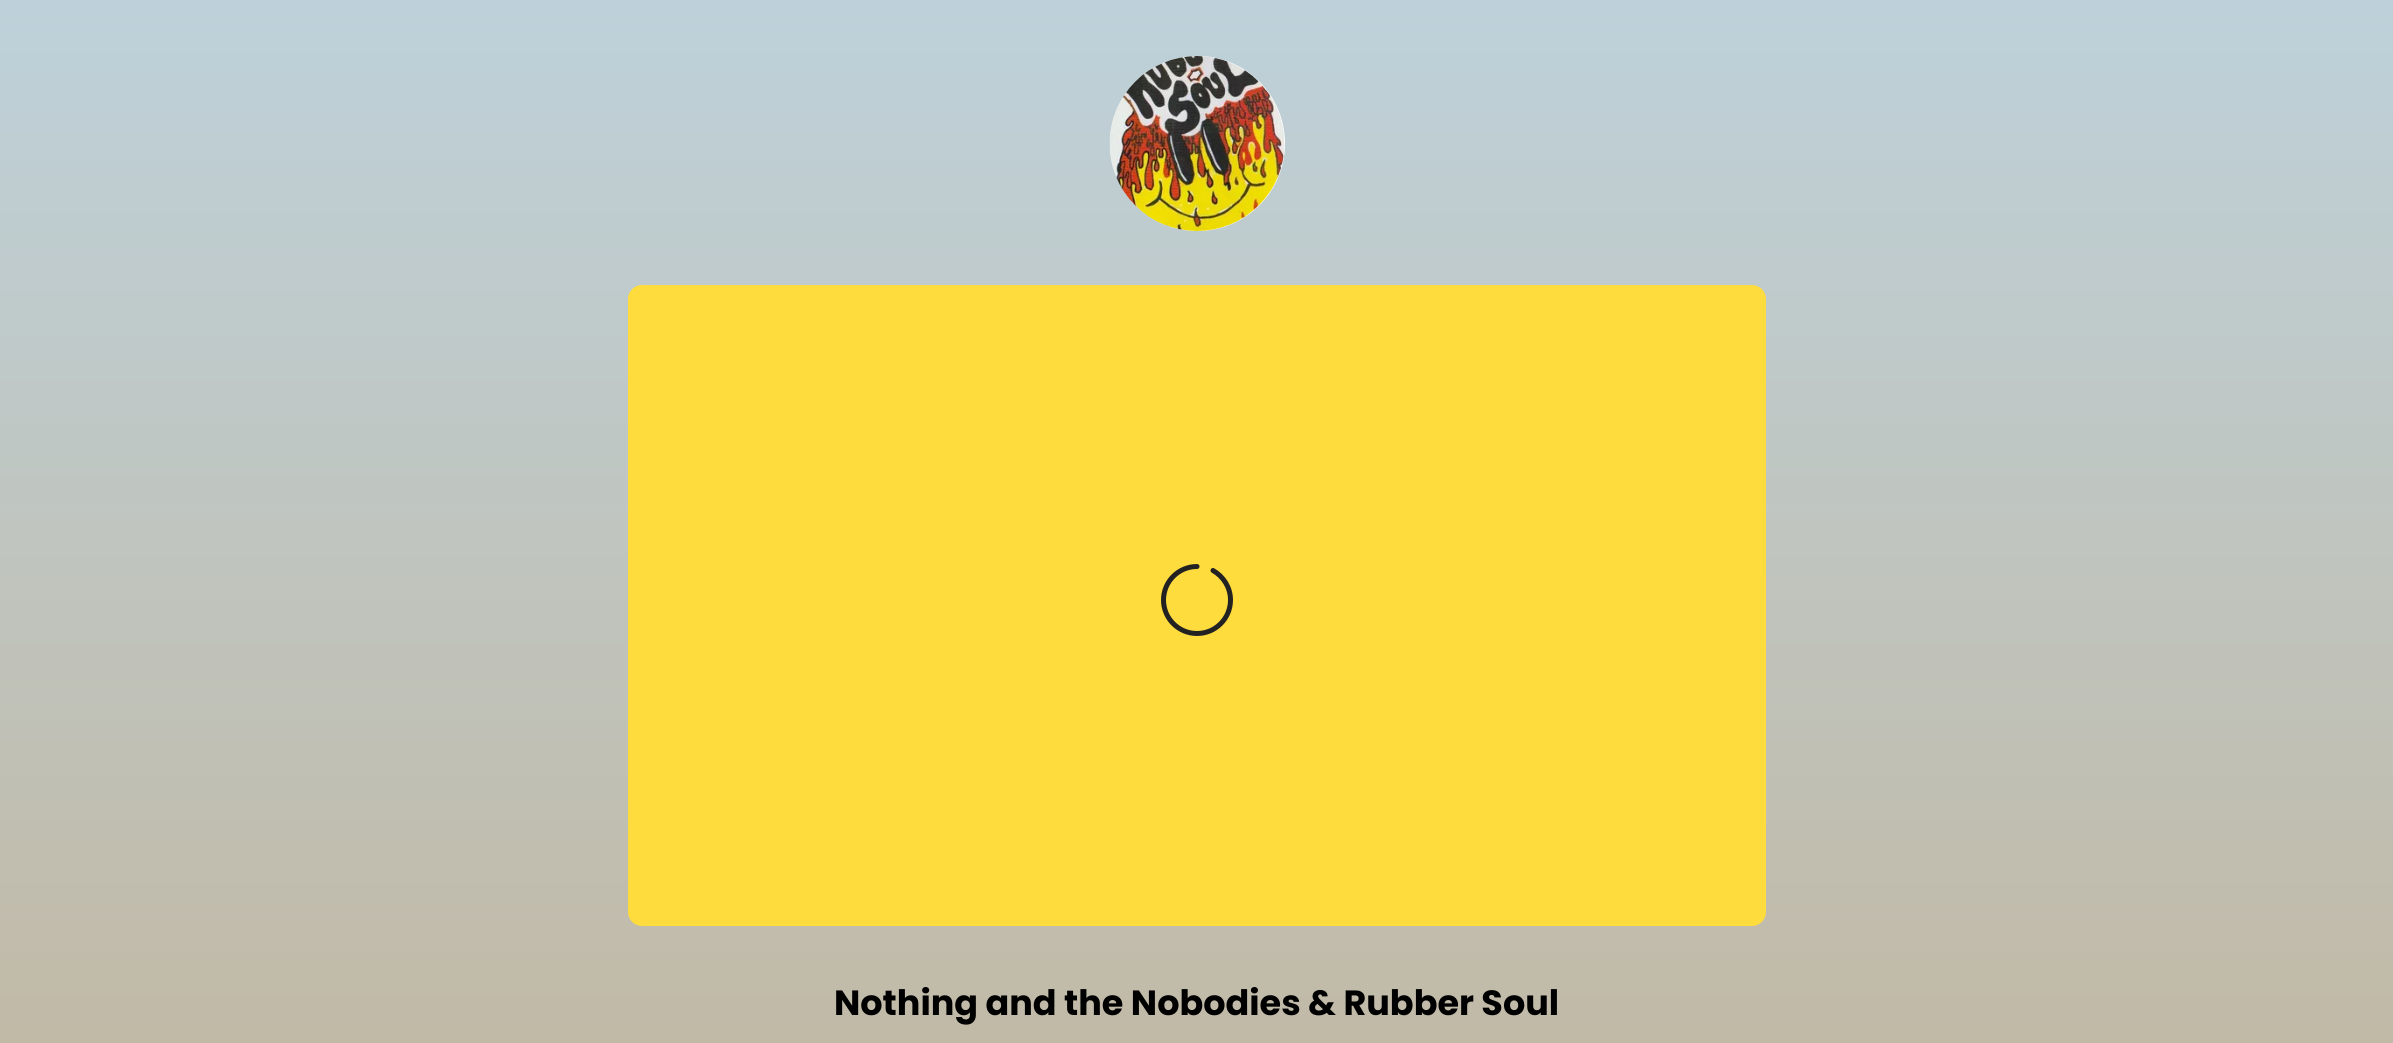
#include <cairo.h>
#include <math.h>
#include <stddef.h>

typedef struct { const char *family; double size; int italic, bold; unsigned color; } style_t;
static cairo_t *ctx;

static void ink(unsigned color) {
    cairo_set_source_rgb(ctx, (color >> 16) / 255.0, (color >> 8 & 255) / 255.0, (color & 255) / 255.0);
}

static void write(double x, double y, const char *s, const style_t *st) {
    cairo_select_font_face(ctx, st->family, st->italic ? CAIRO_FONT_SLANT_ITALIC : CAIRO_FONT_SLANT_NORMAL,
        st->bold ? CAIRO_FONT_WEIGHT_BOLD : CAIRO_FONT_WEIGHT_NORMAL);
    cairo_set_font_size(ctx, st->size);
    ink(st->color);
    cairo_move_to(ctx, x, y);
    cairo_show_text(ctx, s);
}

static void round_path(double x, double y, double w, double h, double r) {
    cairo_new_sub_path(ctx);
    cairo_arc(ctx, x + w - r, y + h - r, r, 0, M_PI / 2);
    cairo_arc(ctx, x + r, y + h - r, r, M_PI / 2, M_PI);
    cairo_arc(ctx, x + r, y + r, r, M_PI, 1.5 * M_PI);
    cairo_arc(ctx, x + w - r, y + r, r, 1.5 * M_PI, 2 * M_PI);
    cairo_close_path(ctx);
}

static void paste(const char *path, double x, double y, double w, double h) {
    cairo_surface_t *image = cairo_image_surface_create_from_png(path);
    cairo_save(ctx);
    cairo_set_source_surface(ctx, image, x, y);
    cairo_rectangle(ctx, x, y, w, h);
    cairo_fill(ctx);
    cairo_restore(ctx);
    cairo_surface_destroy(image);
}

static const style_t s1 = {"Poppins", 35, 0, 1, 0x000000};

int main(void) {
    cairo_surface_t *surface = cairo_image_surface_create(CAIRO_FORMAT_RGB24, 2393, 1043);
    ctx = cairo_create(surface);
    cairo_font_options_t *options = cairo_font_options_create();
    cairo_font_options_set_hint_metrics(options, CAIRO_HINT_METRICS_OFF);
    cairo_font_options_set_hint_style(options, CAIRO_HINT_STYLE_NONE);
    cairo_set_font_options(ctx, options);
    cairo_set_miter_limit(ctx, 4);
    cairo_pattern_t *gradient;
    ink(0xffffff);
    cairo_paint(ctx);
    gradient = cairo_pattern_create_linear(1197, 0, 1197, 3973);
    cairo_pattern_add_color_stop_rgba(gradient, 0, 0.745, 0.82, 0.855, 1);
    cairo_pattern_add_color_stop_rgba(gradient, 1, 0.792, 0.467, 0.086, 1);
    cairo_set_source(ctx, gradient);
    cairo_pattern_destroy(gradient);
    cairo_rectangle(ctx, 0, 0, 2393, 1043);
    cairo_fill(ctx);
    ink(0xffffff);
    cairo_arc(ctx, 1197.5, 143.5, 87.5, 0, 2 * M_PI);
    cairo_fill(ctx);
    paste("pic1.png", 1109, 56, 176, 175);
    ink(0xfedc3d);
    round_path(628, 285, 1138, 641, 14);
    cairo_fill(ctx);
    cairo_new_path(ctx);
    cairo_move_to(ctx, 1213, 570.5);
    cairo_curve_to(ctx, 1223.5, 576.5, 1230.5, 587.5, 1230.5, 600);
    cairo_curve_to(ctx, 1230.5, 618.5, 1215.5, 633.5, 1197, 633.5);
    cairo_curve_to(ctx, 1178.5, 633.5, 1163.5, 618.5, 1163.5, 600);
    cairo_curve_to(ctx, 1163.5, 581.5, 1178.5, 566.5, 1197, 566.5);
    ink(0x222222);
    cairo_set_line_width(ctx, 5);
    cairo_set_line_cap(ctx, CAIRO_LINE_CAP_ROUND);
    cairo_stroke(ctx);
    write(834, 1015, "Nothing and the Nobodies & Rubber Soul", &s1);
    cairo_surface_write_to_png(surface, "screenshot.png");
    cairo_font_options_destroy(options);
    cairo_destroy(ctx);
    cairo_surface_destroy(surface);
    return 0;
}
